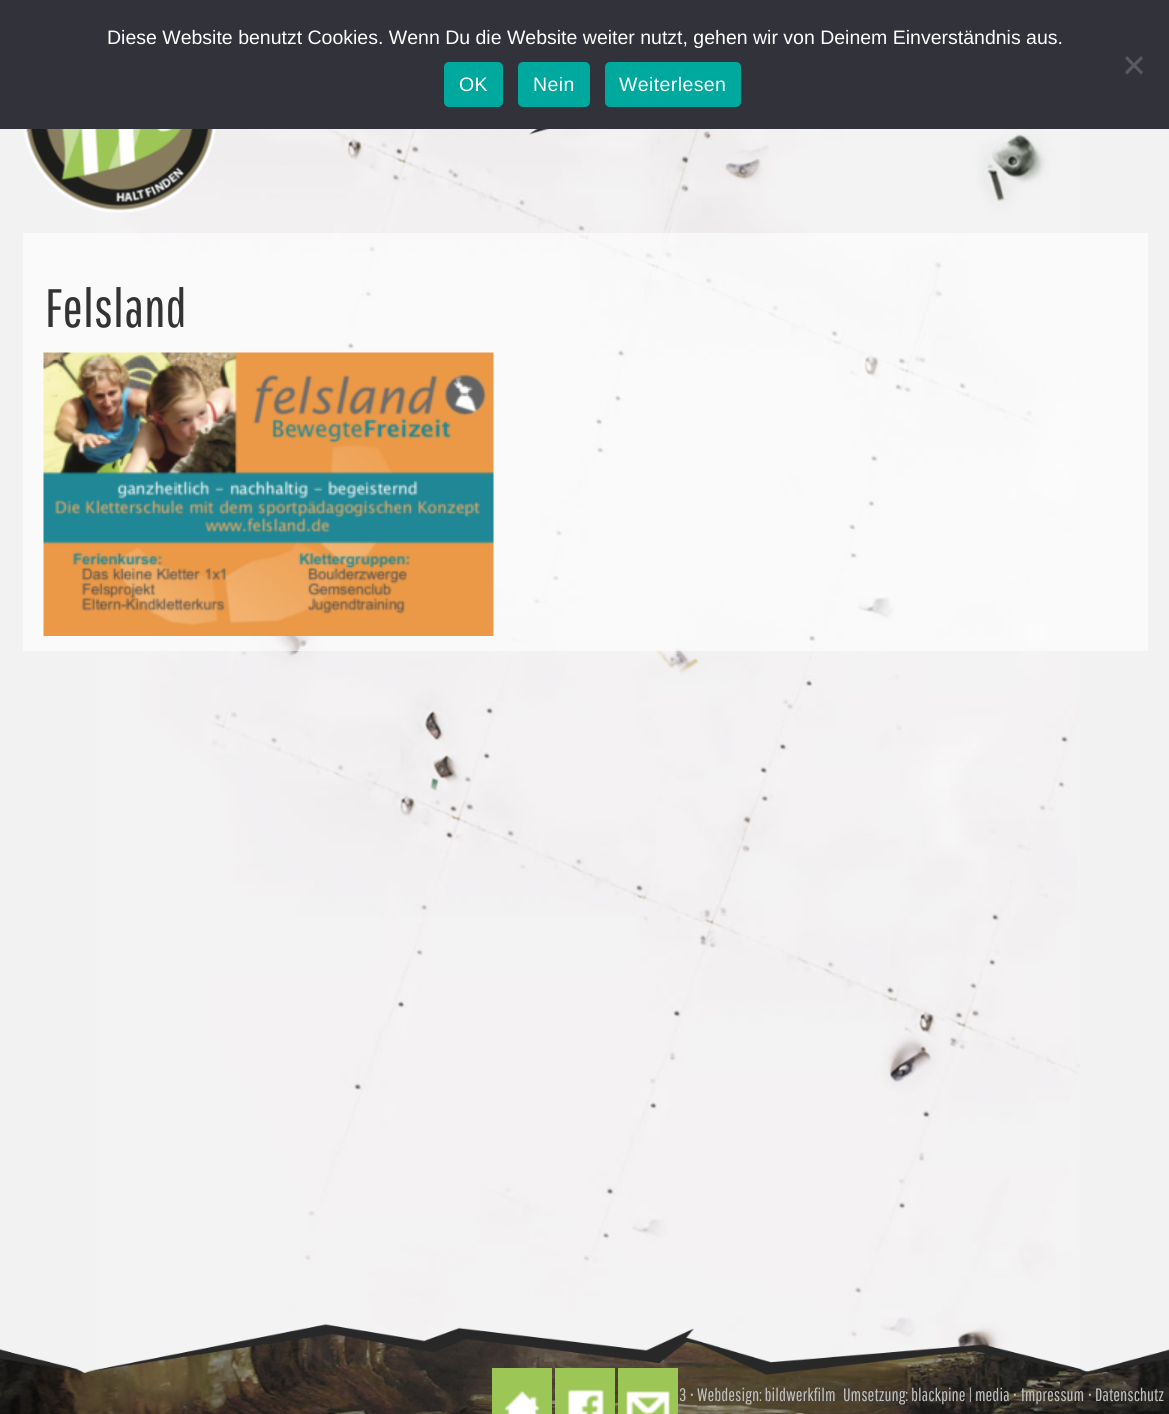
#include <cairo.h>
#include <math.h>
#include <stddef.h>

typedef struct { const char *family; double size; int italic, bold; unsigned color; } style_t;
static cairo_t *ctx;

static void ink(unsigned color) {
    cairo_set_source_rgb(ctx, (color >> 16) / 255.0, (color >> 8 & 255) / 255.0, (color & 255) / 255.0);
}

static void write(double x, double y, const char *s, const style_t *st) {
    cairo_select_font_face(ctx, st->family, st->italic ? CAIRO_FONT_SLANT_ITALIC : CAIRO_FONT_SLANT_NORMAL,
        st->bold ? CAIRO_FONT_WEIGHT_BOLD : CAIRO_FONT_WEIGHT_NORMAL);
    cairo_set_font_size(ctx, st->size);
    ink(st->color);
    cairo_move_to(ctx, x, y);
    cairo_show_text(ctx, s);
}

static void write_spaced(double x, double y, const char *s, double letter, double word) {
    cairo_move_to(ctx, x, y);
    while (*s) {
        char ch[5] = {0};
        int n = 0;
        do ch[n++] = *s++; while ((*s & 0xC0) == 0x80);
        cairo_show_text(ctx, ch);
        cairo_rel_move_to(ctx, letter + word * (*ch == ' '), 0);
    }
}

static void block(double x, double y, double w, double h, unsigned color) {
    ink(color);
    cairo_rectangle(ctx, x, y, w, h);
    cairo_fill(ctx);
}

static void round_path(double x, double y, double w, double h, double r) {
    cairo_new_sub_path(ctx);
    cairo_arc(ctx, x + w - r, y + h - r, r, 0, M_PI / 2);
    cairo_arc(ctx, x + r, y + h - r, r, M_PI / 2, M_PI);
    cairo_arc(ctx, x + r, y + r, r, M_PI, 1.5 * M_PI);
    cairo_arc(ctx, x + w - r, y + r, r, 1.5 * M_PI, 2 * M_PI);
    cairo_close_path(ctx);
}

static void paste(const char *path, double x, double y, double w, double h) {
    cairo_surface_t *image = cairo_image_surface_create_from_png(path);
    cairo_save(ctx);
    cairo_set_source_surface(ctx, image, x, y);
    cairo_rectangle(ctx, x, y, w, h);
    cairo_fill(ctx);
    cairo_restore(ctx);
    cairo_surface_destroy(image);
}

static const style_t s1 = {"Liberation Sans", 19.5, 0, 0, 0xffffff};
static const style_t s2 = {"Pathway Gothic One", 54, 0, 0, 0x333333};
static const style_t s3 = {"Pathway Gothic One", 18, 0, 0, 0xc0c0c0};
static const style_t s4 = {"DejaVu Sans", 18, 0, 0, 0xc0c0c0};

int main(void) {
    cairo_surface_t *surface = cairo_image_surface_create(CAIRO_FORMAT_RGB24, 1169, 1414);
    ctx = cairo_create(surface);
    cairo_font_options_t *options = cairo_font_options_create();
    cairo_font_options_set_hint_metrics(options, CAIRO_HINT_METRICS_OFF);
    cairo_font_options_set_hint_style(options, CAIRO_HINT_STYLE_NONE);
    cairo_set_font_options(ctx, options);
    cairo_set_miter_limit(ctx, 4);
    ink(0xf3f2f3);
    cairo_paint(ctx);
    paste("pic1.png", 97, 129, 983, 1242);
    block(0, 0, 1169, 129, 0x32323a);
    write(107, 44, "Diese Website benutzt Cookies. Wenn Du die Website weiter nutzt, gehen wir von Deinem Einverständnis aus.", &s1);
    ink(0x59595d);
    cairo_new_path(ctx);
    cairo_move_to(ctx, 1141, 56);
    cairo_line_to(ctx, 1143, 58.5);
    cairo_line_to(ctx, 1127, 74.5);
    cairo_line_to(ctx, 1125, 72);
    cairo_close_path(ctx);
    cairo_fill(ctx);
    cairo_new_path(ctx);
    cairo_move_to(ctx, 1125, 58.5);
    cairo_line_to(ctx, 1127, 56);
    cairo_line_to(ctx, 1143, 72);
    cairo_line_to(ctx, 1141, 74.5);
    cairo_close_path(ctx);
    cairo_fill(ctx);
    ink(0x00a99d);
    round_path(444, 62, 59, 45, 5);
    cairo_fill(ctx);
    ink(0xffffff);
    write_spaced(459, 91, "OK", 0.4, 0);
    ink(0x00a99d);
    round_path(518, 62, 72, 45, 5);
    cairo_fill(ctx);
    ink(0xffffff);
    write_spaced(533, 91, "Nein", 0.4, 0);
    ink(0x00a99d);
    round_path(605, 62, 136, 45, 5);
    cairo_fill(ctx);
    ink(0xffffff);
    write_spaced(619, 91, "Weiterlesen", 0.4, 0);
    paste("pic2.png", 529, 129, 20, 6);
    paste("pic3.png", 23, 129, 194, 84);
    cairo_set_source_rgba(ctx, 1, 1, 1, 0.6);
    cairo_rectangle(ctx, 23, 233, 1125, 418);
    cairo_fill(ctx);
    write(45, 327, "Felsland", &s2);
    paste("pic4.png", 43, 352, 451, 284);
    paste("pic5.png", 0, 1324, 1169, 90);
    block(492, 1368, 60, 46, 0x9cc655);
    paste("pic6.png", 504, 1391, 36, 23);
    block(555, 1368, 60, 46, 0x9cc655);
    paste("pic7.png", 567, 1389, 37, 25);
    block(618, 1368, 60, 46, 0x9cc655);
    paste("pic8.png", 626, 1391, 44, 23);
    write(679, 1401, "3", &s3);
    write(689, 1401, "⋅", &s4);
    write(697, 1401, "Webdesign: bildwerkfilm", &s3);
    write(843, 1401, "Umsetzung: blackpine | media", &s3);
    write(1012, 1401, "⋅", &s4);
    write(1021, 1401, "Impressum", &s3);
    write(1087, 1401, "⋅", &s4);
    write(1095, 1401, "Datenschutz", &s3);
    cairo_surface_write_to_png(surface, "screenshot.png");
    cairo_font_options_destroy(options);
    cairo_destroy(ctx);
    cairo_surface_destroy(surface);
    return 0;
}
